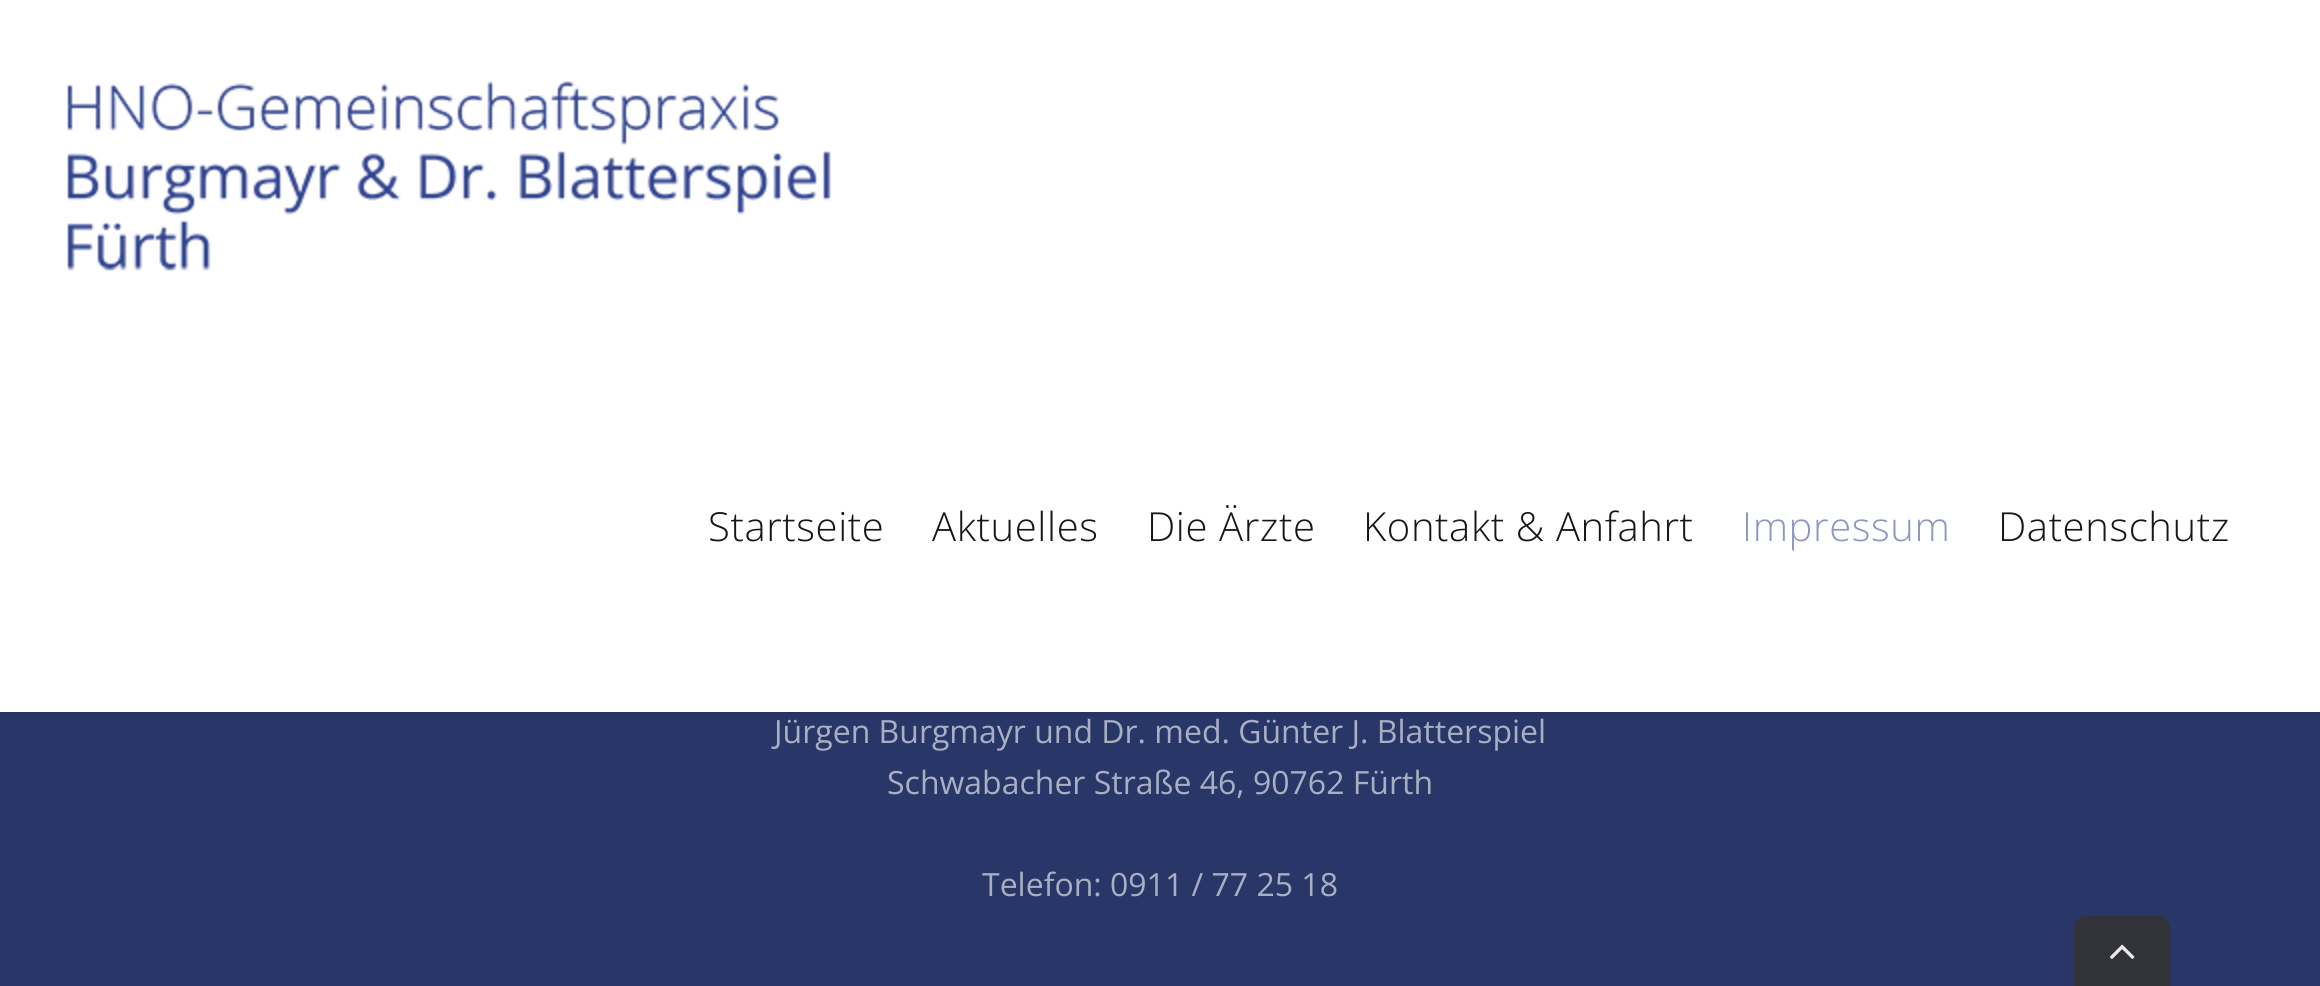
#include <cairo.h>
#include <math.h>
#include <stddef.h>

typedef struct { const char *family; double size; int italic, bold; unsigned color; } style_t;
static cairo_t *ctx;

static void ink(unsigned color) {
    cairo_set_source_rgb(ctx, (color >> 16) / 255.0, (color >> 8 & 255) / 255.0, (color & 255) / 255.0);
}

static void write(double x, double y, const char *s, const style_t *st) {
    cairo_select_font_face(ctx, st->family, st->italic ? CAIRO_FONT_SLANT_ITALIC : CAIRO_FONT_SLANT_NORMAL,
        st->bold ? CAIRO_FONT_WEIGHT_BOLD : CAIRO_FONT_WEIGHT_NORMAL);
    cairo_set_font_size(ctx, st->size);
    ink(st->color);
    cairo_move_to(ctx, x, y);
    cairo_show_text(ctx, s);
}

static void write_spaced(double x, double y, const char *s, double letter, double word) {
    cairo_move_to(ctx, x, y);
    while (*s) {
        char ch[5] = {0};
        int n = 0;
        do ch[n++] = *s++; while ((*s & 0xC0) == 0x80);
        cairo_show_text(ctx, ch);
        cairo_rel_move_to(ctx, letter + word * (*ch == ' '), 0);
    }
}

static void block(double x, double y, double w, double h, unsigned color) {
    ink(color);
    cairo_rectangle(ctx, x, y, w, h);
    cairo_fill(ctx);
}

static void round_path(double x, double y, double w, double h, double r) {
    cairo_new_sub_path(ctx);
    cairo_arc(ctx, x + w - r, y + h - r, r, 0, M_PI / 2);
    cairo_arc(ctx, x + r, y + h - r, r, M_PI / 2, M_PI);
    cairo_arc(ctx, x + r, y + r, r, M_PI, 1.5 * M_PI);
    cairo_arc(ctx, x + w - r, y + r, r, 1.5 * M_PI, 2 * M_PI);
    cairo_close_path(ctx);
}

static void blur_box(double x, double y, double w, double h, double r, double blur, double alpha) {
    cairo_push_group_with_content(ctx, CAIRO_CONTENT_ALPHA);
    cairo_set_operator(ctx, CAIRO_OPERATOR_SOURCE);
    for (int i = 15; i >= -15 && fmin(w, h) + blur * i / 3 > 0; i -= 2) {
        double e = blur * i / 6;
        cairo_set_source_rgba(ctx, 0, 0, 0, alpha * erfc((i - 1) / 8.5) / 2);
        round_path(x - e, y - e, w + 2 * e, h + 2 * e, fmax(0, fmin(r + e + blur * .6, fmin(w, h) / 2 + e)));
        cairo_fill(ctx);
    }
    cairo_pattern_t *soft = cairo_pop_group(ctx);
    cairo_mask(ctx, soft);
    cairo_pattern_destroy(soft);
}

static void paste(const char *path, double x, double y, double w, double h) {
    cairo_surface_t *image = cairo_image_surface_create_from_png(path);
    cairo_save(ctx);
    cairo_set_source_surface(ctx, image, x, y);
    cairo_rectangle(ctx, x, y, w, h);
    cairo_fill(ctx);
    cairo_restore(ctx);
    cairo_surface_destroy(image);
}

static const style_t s1 = {"Open Sans", 32, 0, 0, 0xa9afc3};

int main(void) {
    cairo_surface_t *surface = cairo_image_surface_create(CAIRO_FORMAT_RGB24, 2320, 986);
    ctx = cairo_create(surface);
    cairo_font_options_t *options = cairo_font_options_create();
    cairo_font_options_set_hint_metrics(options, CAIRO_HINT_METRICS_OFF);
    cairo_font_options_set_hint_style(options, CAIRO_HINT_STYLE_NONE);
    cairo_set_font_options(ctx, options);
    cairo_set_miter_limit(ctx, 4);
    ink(0x293668);
    cairo_paint(ctx);
    ink(0x000000);
    blur_box(0, 2, 2320, 712, 0, 3, 0.12);
    block(0, 0, 2320, 712, 0xffffff);
    paste("pic1.png", 67, 81, 764, 190);
    cairo_select_font_face(ctx, "Open Sans Light", CAIRO_FONT_SLANT_NORMAL, CAIRO_FONT_WEIGHT_NORMAL);
    cairo_set_font_size(ctx, 40);
    ink(0x141617);
    write_spaced(708, 541, "Startseite", 0.6, 0);
    write_spaced(932, 541, "Aktuelles", 0.6, 0);
    write_spaced(1147, 541, "Die Ärzte", 0.6, 0);
    write_spaced(1363, 541, "Kontakt & Anfahrt", 0.6, 0);
    ink(0x8d97c1);
    write_spaced(1742, 541, "Impressum", 0.6, 0);
    ink(0x141617);
    write_spaced(1998, 541, "Datenschutz", 0.6, 0);
    write(774, 743, "Jürgen Burgmayr und Dr. med. Günter J. Blatterspiel", &s1);
    write(887, 794, "Schwabacher Straße 46, 90762 Fürth", &s1);
    write(982, 896, "Telefon: 0911 / 77 25 18", &s1);
    ink(0x323338);
    cairo_new_path(ctx);
    cairo_move_to(ctx, 2086, 916);
    cairo_line_to(ctx, 2158, 916);
    cairo_curve_to(ctx, 2164.5, 916, 2170, 921.5, 2170, 928);
    cairo_line_to(ctx, 2170, 986);
    cairo_line_to(ctx, 2074, 986);
    cairo_line_to(ctx, 2074, 928);
    cairo_curve_to(ctx, 2074, 921.5, 2079.5, 916, 2086, 916);
    cairo_close_path(ctx);
    cairo_fill(ctx);
    paste("pic2.png", 2110, 944, 25, 15);
    cairo_surface_write_to_png(surface, "screenshot.png");
    cairo_font_options_destroy(options);
    cairo_destroy(ctx);
    cairo_surface_destroy(surface);
    return 0;
}
